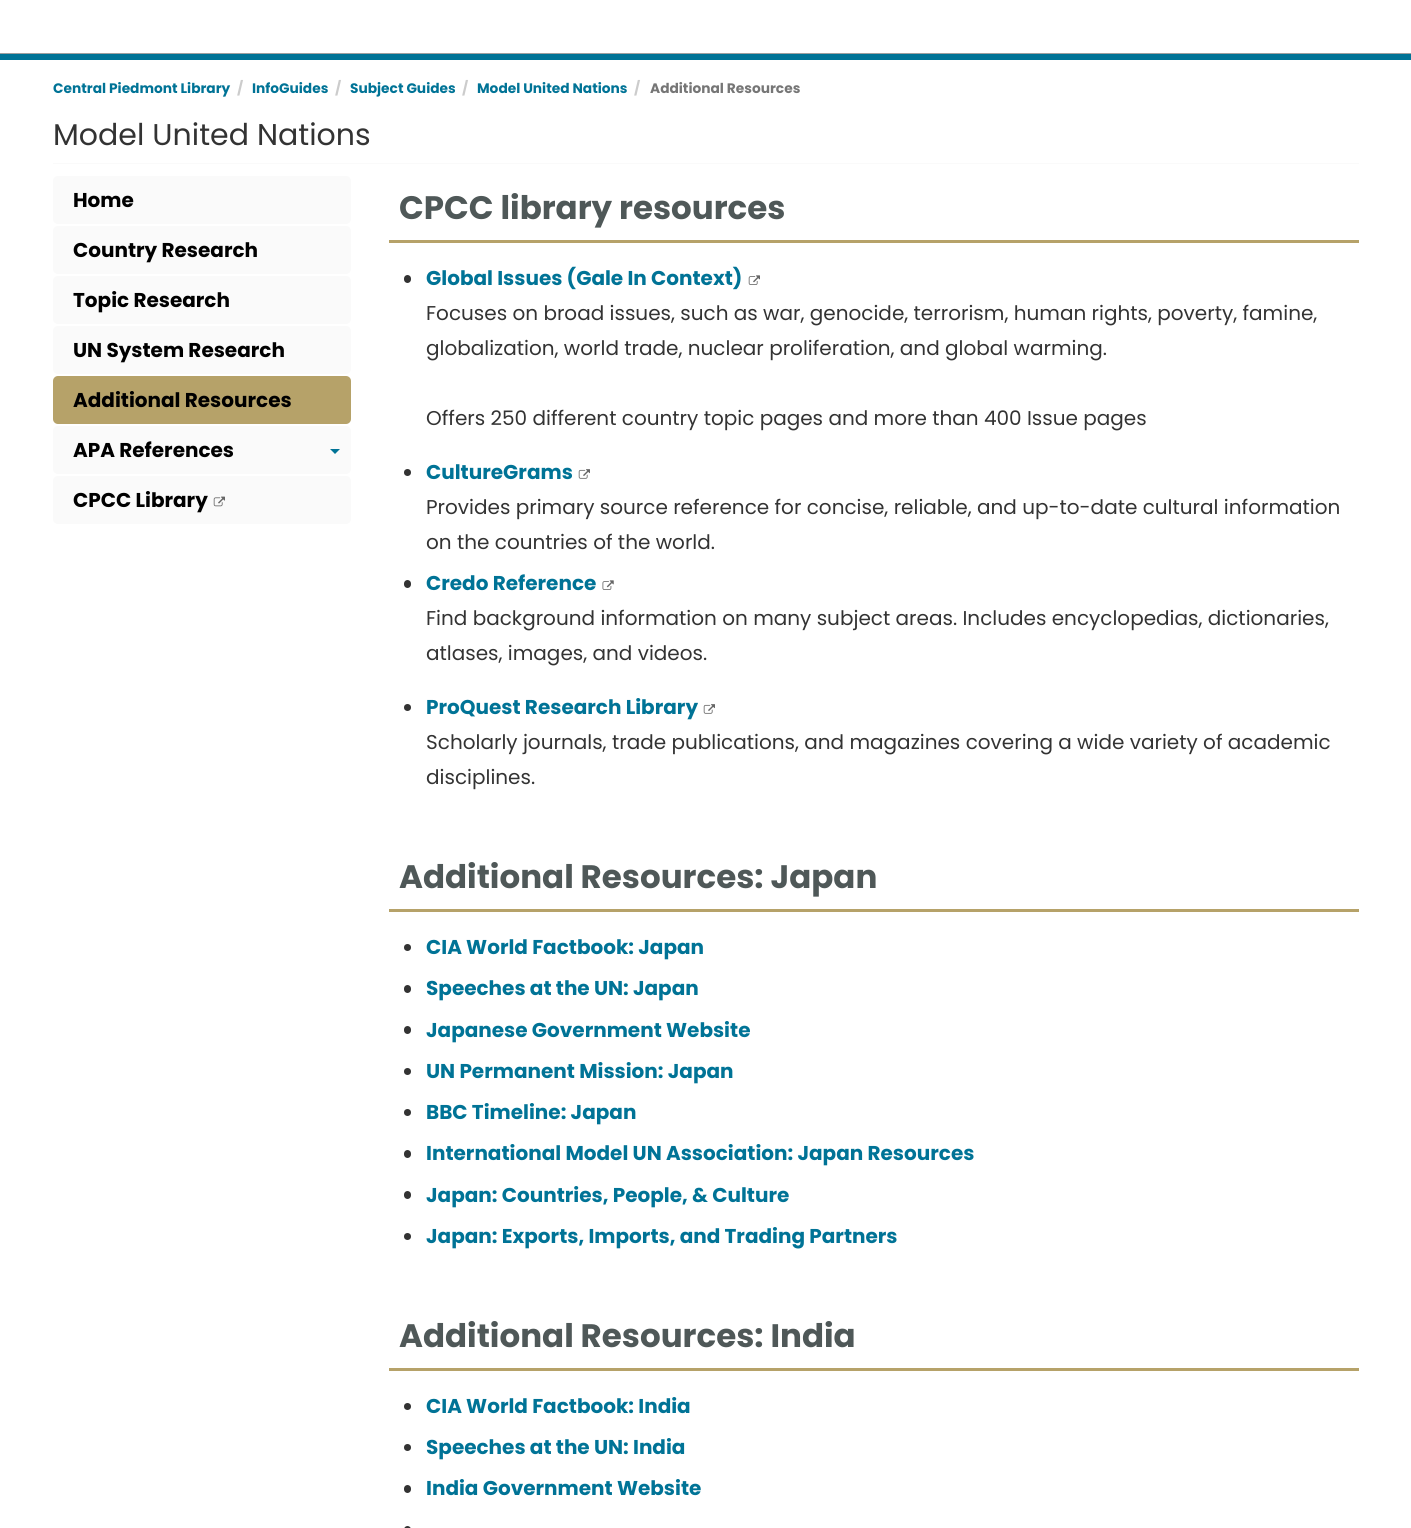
#include <cairo.h>
#include <math.h>
#include <stddef.h>

typedef struct { const char *family; double size; int italic, bold; unsigned color; } style_t;
static cairo_t *ctx;

static void ink(unsigned color) {
    cairo_set_source_rgb(ctx, (color >> 16) / 255.0, (color >> 8 & 255) / 255.0, (color & 255) / 255.0);
}

static void write(double x, double y, const char *s, const style_t *st) {
    cairo_select_font_face(ctx, st->family, st->italic ? CAIRO_FONT_SLANT_ITALIC : CAIRO_FONT_SLANT_NORMAL,
        st->bold ? CAIRO_FONT_WEIGHT_BOLD : CAIRO_FONT_WEIGHT_NORMAL);
    cairo_set_font_size(ctx, st->size);
    ink(st->color);
    cairo_move_to(ctx, x, y);
    cairo_show_text(ctx, s);
}

static void block(double x, double y, double w, double h, unsigned color) {
    ink(color);
    cairo_rectangle(ctx, x, y, w, h);
    cairo_fill(ctx);
}

static void round_path(double x, double y, double w, double h, double r) {
    cairo_new_sub_path(ctx);
    cairo_arc(ctx, x + w - r, y + h - r, r, 0, M_PI / 2);
    cairo_arc(ctx, x + r, y + h - r, r, M_PI / 2, M_PI);
    cairo_arc(ctx, x + r, y + r, r, M_PI, 1.5 * M_PI);
    cairo_arc(ctx, x + w - r, y + r, r, 1.5 * M_PI, 2 * M_PI);
    cairo_close_path(ctx);
}

static void paste(const char *path, double x, double y, double w, double h) {
    cairo_surface_t *image = cairo_image_surface_create_from_png(path);
    cairo_save(ctx);
    cairo_set_source_surface(ctx, image, x, y);
    cairo_rectangle(ctx, x, y, w, h);
    cairo_fill(ctx);
    cairo_restore(ctx);
    cairo_surface_destroy(image);
}

static const style_t s1 = {"Poppins", 13.75, 0, 1, 0x007396};
static const style_t s2 = {"Poppins", 13.75, 0, 1, 0xcccccc};
static const style_t s3 = {"Poppins", 13.75, 0, 1, 0x767676};
static const style_t s4 = {"Poppins", 30, 0, 0, 0x333333};
static const style_t s5 = {"Poppins", 20, 0, 1, 0x000000};
static const style_t s6 = {"Poppins", 32.5, 0, 1, 0x4f5858};
static const style_t s7 = {"Poppins", 20, 0, 1, 0x007396};
static const style_t s8 = {"Poppins", 20, 0, 0, 0x333333};

int main(void) {
    cairo_surface_t *surface = cairo_image_surface_create(CAIRO_FORMAT_RGB24, 1411, 1528);
    ctx = cairo_create(surface);
    cairo_font_options_t *options = cairo_font_options_create();
    cairo_font_options_set_hint_metrics(options, CAIRO_HINT_METRICS_OFF);
    cairo_font_options_set_hint_style(options, CAIRO_HINT_STYLE_NONE);
    cairo_set_font_options(ctx, options);
    cairo_set_miter_limit(ctx, 4);
    ink(0xffffff);
    cairo_paint(ctx);
    block(0, 54, 1411, 6, 0x007396);
    block(0, 53, 1411, 1, 0x9f9f9f);
    write(53, 93, "Central Piedmont Library", &s1);
    write(237, 93, "/", &s2);
    write(252, 93, "InfoGuides", &s1);
    write(335, 93, "/", &s2);
    write(350, 93, "Subject Guides", &s1);
    write(462, 93, "/", &s2);
    write(477, 93, "Model United Nations", &s1);
    write(634, 93, "/", &s2);
    write(650, 93, "Additional Resources", &s3);
    write(53, 145, "Model United Nations", &s4);
    block(53, 163, 1306, 1, 0xfafafa);
    round_path(53, 176, 298, 48, 5);
    cairo_fill(ctx);
    write(73, 207, "Home", &s5);
    ink(0xfafafa);
    round_path(53, 226, 298, 48, 5);
    cairo_fill(ctx);
    write(73, 257, "Country Research", &s5);
    ink(0xfafafa);
    round_path(53, 276, 298, 48, 5);
    cairo_fill(ctx);
    write(73, 307, "Topic Research", &s5);
    ink(0xfafafa);
    round_path(53, 326, 298, 48, 5);
    cairo_fill(ctx);
    write(73, 357, "UN System Research", &s5);
    ink(0xb6a269);
    round_path(53, 376, 298, 48, 5);
    cairo_fill(ctx);
    write(73, 407, "Additional Resources", &s5);
    ink(0xfafafa);
    round_path(53, 426, 298, 48, 5);
    cairo_fill(ctx);
    write(73, 457, "APA References", &s5);
    ink(0x007396);
    cairo_new_path(ctx);
    cairo_move_to(ctx, 330, 449);
    cairo_line_to(ctx, 340, 449);
    cairo_line_to(ctx, 335, 454);
    cairo_close_path(ctx);
    cairo_fill(ctx);
    ink(0xfafafa);
    round_path(53, 476, 298, 48, 5);
    cairo_fill(ctx);
    write(73, 507, "CPCC Library", &s5);
    paste("pic1.png", 213, 496, 12, 11);
    block(389, 240, 970, 3, 0xb6a269);
    write(399, 219, "CPCC library resources", &s6);
    ink(0x333333);
    round_path(404, 275, 7, 8, 3.5);
    cairo_fill(ctx);
    write(426, 285, "Global Issues (Gale In Context)", &s7);
    paste("pic2.png", 748, 275, 12, 10);
    write(426, 320, "Focuses on broad issues, such as war, genocide, terrorism, human rights, poverty, famine,", &s8);
    write(426, 355, "globalization, world trade, nuclear proliferation, and global warming.", &s8);
    write(426, 425, "Offers 250 different country topic pages and more than 400 Issue pages", &s8);
    cairo_new_path(ctx);
    cairo_arc(ctx, 407.5, 472.5, 3.5, 0, 2 * M_PI);
    cairo_fill(ctx);
    write(426, 479, "CultureGrams", &s7);
    paste("pic3.png", 578, 469, 12, 10);
    write(426, 514, "Provides primary source reference for concise, reliable, and up-to-date cultural information", &s8);
    write(426, 549, "on the countries of the world.", &s8);
    round_path(404, 580, 7, 8, 3.5);
    cairo_fill(ctx);
    write(426, 590, "Credo Reference", &s7);
    paste("pic4.png", 602, 580, 12, 10);
    write(426, 625, "Find background information on many subject areas. Includes encyclopedias, dictionaries,", &s8);
    write(426, 660, "atlases, images, and videos.", &s8);
    cairo_new_path(ctx);
    cairo_arc(ctx, 407.5, 707.5, 3.5, 0, 2 * M_PI);
    cairo_fill(ctx);
    write(426, 714, "ProQuest Research Library", &s7);
    paste("pic3.png", 703, 704, 12, 10);
    write(426, 749, "Scholarly journals, trade publications, and magazines covering a wide variety of academic", &s8);
    write(426, 784, "disciplines.", &s8);
    block(389, 909, 970, 3, 0xb6a269);
    write(399, 888, "Additional Resources: Japan", &s6);
    ink(0x333333);
    cairo_new_path(ctx);
    cairo_arc(ctx, 407.5, 947.5, 3.5, 0, 2 * M_PI);
    cairo_fill(ctx);
    write(426, 954, "CIA World Factbook: Japan", &s7);
    ink(0x333333);
    round_path(404, 985, 7, 8, 3.5);
    cairo_fill(ctx);
    write(426, 995, "Speeches at the UN: Japan", &s7);
    ink(0x333333);
    round_path(404, 1026, 7, 8, 3.5);
    cairo_fill(ctx);
    write(426, 1037, "Japanese Government Website", &s7);
    ink(0x333333);
    cairo_new_path(ctx);
    cairo_arc(ctx, 407.5, 1071.5, 3.5, 0, 2 * M_PI);
    cairo_fill(ctx);
    write(426, 1078, "UN Permanent Mission: Japan", &s7);
    ink(0x333333);
    cairo_new_path(ctx);
    cairo_arc(ctx, 407.5, 1112.5, 3.5, 0, 2 * M_PI);
    cairo_fill(ctx);
    write(426, 1119, "BBC Timeline: Japan", &s7);
    ink(0x333333);
    round_path(404, 1150, 7, 8, 3.5);
    cairo_fill(ctx);
    write(426, 1160, "International Model UN Association: Japan Resources", &s7);
    ink(0x333333);
    round_path(404, 1191, 7, 8, 3.5);
    cairo_fill(ctx);
    write(426, 1202, "Japan: Countries, People, & Culture", &s7);
    ink(0x333333);
    cairo_new_path(ctx);
    cairo_arc(ctx, 407.5, 1236.5, 3.5, 0, 2 * M_PI);
    cairo_fill(ctx);
    write(426, 1243, "Japan: Exports, Imports, and Trading Partners", &s7);
    block(389, 1368, 970, 3, 0xb6a269);
    write(399, 1347, "Additional Resources: India", &s6);
    ink(0x333333);
    cairo_new_path(ctx);
    cairo_arc(ctx, 407.5, 1406.5, 3.5, 0, 2 * M_PI);
    cairo_fill(ctx);
    write(426, 1413, "CIA World Factbook: India", &s7);
    ink(0x333333);
    cairo_new_path(ctx);
    cairo_arc(ctx, 407.5, 1447.5, 3.5, 0, 2 * M_PI);
    cairo_fill(ctx);
    write(426, 1454, "Speeches at the UN: India", &s7);
    ink(0x333333);
    round_path(404, 1485, 7, 8, 3.5);
    cairo_fill(ctx);
    write(426, 1495, "India Government Website", &s7);
    ink(0x333333);
    round_path(404, 1526, 7, 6, 3.5);
    cairo_fill(ctx);
    cairo_surface_write_to_png(surface, "screenshot.png");
    cairo_font_options_destroy(options);
    cairo_destroy(ctx);
    cairo_surface_destroy(surface);
    return 0;
}
